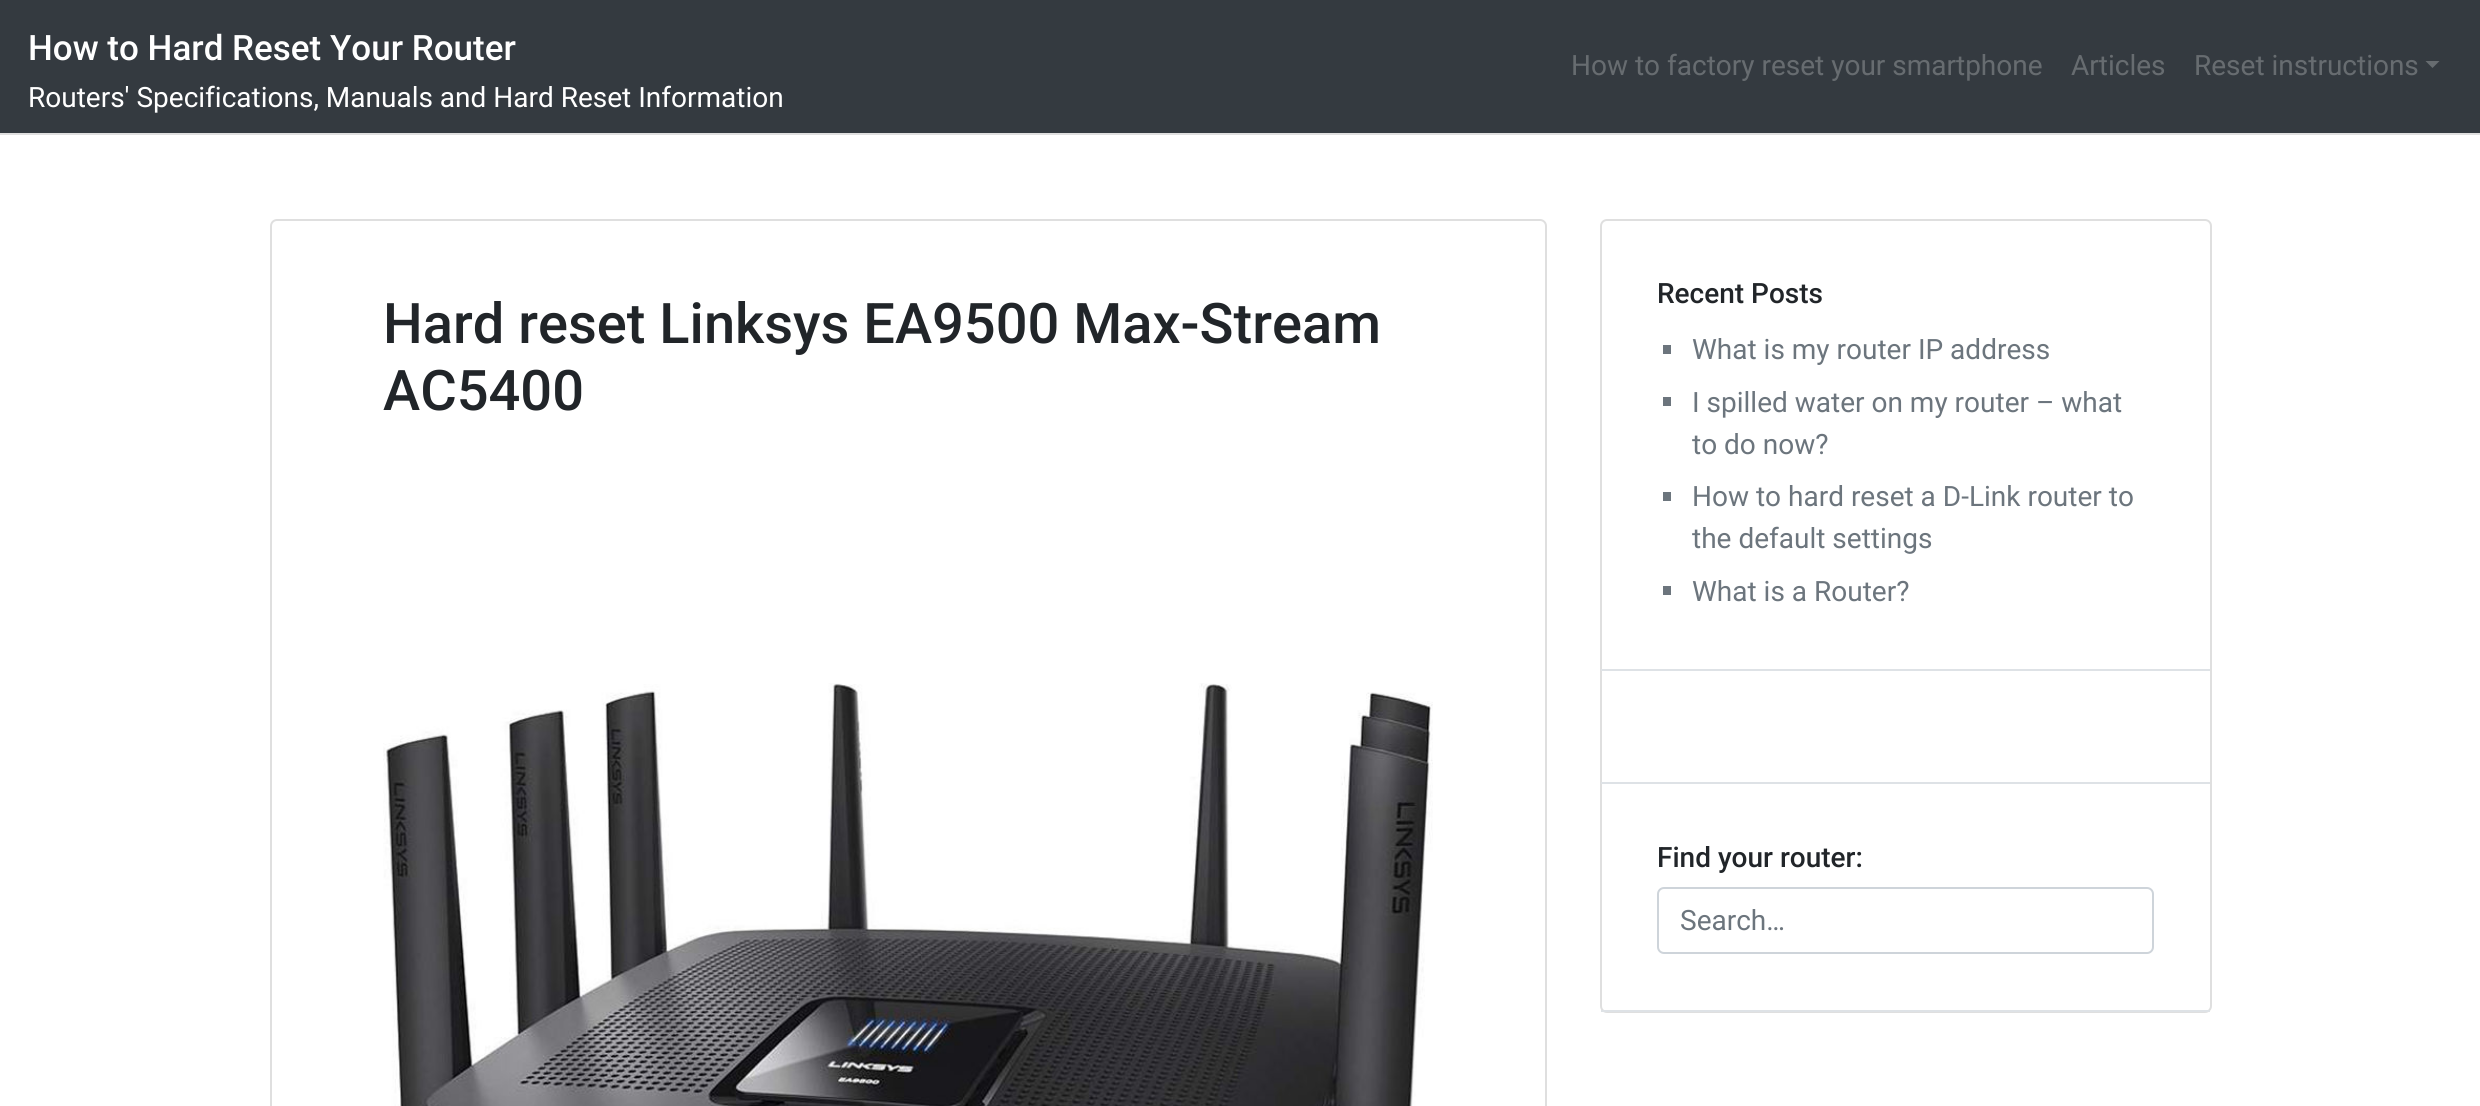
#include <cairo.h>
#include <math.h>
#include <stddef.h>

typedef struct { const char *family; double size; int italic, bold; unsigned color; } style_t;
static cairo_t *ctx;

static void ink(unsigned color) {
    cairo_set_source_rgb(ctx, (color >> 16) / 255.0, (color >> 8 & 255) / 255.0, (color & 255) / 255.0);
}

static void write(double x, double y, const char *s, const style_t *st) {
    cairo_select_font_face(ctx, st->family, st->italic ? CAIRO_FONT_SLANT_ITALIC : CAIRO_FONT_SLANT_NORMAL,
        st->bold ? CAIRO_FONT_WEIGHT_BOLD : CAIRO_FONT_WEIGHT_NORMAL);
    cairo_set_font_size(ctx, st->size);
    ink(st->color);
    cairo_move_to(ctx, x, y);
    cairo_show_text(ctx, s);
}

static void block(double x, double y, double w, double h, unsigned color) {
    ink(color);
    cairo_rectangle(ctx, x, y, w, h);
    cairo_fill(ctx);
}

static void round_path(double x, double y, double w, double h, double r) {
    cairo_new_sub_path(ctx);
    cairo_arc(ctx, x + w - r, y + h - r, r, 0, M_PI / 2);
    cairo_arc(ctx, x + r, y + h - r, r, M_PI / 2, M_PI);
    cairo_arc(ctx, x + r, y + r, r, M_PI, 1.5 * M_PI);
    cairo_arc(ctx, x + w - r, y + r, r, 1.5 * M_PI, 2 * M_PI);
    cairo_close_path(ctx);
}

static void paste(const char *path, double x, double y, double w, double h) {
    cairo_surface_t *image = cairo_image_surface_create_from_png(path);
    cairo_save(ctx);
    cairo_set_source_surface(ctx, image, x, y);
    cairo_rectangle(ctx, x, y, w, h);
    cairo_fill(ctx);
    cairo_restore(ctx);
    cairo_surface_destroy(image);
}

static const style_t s1 = {"Roboto Medium", 35, 0, 0, 0xffffff};
static const style_t s2 = {"Roboto", 28, 0, 0, 0xffffff};
static const style_t s3 = {"Roboto", 28, 0, 0, 0x676c70};
static const style_t s4 = {"Roboto Medium", 56, 0, 0, 0x212529};
static const style_t s5 = {"Roboto Medium", 28, 0, 0, 0x212529};
static const style_t s6 = {"Roboto", 28, 0, 0, 0x6c757d};

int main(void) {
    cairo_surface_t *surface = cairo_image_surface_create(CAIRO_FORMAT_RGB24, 2480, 1106);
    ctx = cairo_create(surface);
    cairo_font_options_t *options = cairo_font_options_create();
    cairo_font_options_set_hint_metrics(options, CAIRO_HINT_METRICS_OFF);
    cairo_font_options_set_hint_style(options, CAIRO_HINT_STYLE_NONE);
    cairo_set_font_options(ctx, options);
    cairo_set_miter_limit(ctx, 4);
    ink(0xffffff);
    cairo_paint(ctx);
    block(0, 133, 2480, 2, 0xdfdfdf);
    block(0, 0, 2480, 133, 0x343a40);
    write(28, 60, "How to Hard Reset Your Router", &s1);
    write(28, 107, "Routers' Specifications, Manuals and Hard Reset Information", &s2);
    write(1571, 75, "How to factory reset your smartphone", &s3);
    write(2071, 75, "Articles", &s3);
    write(2194, 75, "Reset instructions", &s3);
    cairo_new_path(ctx);
    cairo_move_to(ctx, 2425.5, 61);
    cairo_line_to(ctx, 2439.5, 61);
    cairo_line_to(ctx, 2432.5, 68);
    cairo_close_path(ctx);
    cairo_fill(ctx);
    round_path(271, 220, 1275, 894, 6);
    ink(0xdfdfdf);
    cairo_stroke(ctx);
    write(383, 343, "Hard reset Linksys EA9500 Max-Stream", &s4);
    write(383, 410, "AC5400", &s4);
    paste("pic1.png", 383, 683, 1050, 423);
    round_path(1601, 220, 610, 792, 6);
    ink(0xdfdfdf);
    cairo_stroke(ctx);
    block(1601, 669, 609, 2, 0xdee2e6);
    write(1657, 303, "Recent Posts", &s5);
    block(1663, 345, 8, 9, 0x6c757d);
    write(1692, 359, "What is my router IP address", &s6);
    block(1663, 397, 8, 9, 0x6c757d);
    write(1692, 412, "I spilled water on my router – what", &s6);
    write(1692, 454, "to do now?", &s6);
    block(1663, 492, 8, 9, 0x6c757d);
    write(1692, 506, "How to hard reset a D-Link router to", &s6);
    write(1692, 548, "the default settings", &s6);
    block(1663, 586, 8, 9, 0x6c757d);
    write(1692, 601, "What is a Router?", &s6);
    block(1601, 782, 609, 2, 0xdee2e6);
    block(1601, 1010, 609, 2, 0xdee2e6);
    write(1657, 867, "Find your router:", &s5);
    round_path(1658, 888, 495, 65, 6);
    ink(0xced4da);
    cairo_stroke(ctx);
    write(1680, 930, "Search…", &s6);
    cairo_surface_write_to_png(surface, "screenshot.png");
    cairo_font_options_destroy(options);
    cairo_destroy(ctx);
    cairo_surface_destroy(surface);
    return 0;
}
